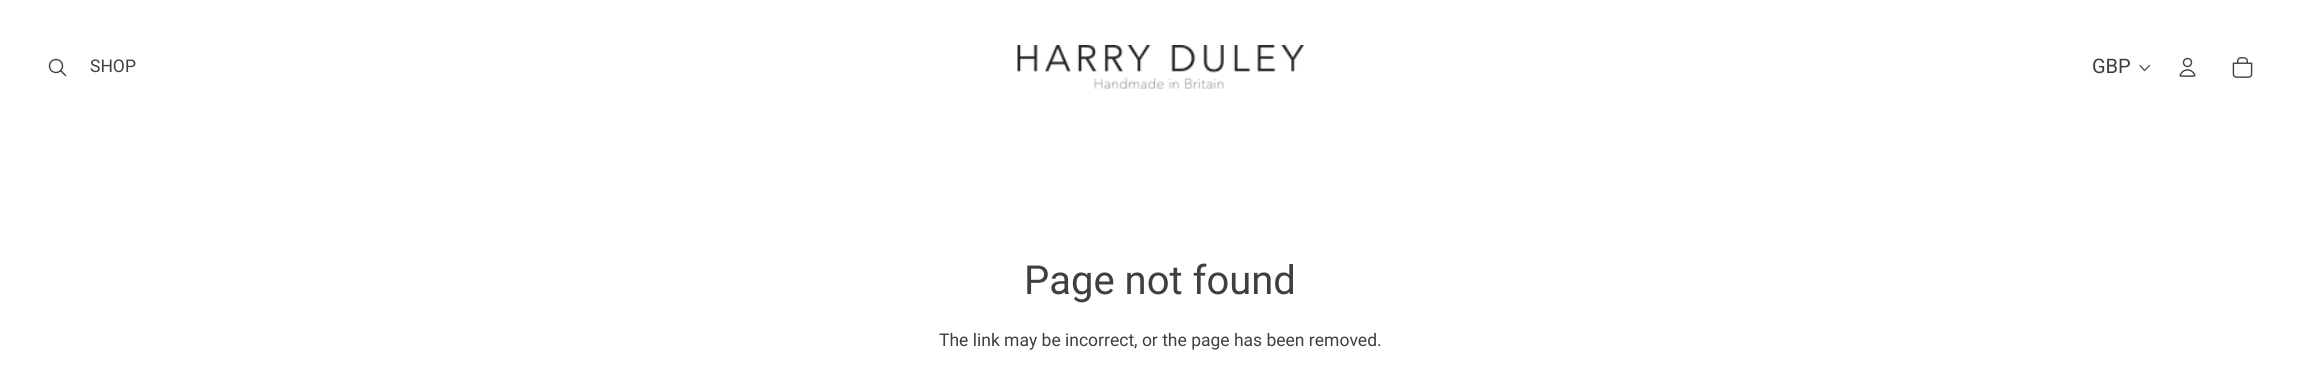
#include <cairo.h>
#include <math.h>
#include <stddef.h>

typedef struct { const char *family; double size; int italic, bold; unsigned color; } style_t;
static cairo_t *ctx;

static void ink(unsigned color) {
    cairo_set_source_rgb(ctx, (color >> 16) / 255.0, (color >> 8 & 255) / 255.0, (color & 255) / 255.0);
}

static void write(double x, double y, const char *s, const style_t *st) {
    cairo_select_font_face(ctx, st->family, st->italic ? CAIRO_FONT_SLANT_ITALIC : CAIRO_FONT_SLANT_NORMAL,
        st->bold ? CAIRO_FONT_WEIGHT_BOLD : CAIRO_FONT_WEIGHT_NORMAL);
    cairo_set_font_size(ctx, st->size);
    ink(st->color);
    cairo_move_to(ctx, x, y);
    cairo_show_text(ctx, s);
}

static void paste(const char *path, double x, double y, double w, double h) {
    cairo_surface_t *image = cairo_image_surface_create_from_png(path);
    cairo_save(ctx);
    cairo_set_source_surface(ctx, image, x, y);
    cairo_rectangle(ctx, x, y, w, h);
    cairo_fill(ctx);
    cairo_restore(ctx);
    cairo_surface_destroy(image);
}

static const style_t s1 = {"Roboto", 17.5, 0, 0, 0x3f3f3f};
static const style_t s2 = {"Roboto", 20, 0, 0, 0x3f3f3f};
static const style_t s3 = {"Roboto", 40, 0, 0, 0x3f3f3f};

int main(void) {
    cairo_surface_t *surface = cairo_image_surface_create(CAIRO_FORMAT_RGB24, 2319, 382);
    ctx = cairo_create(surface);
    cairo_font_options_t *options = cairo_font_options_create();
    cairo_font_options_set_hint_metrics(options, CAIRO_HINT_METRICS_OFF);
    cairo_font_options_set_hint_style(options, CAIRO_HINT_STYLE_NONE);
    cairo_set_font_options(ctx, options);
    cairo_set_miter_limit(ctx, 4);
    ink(0xffffff);
    cairo_paint(ctx);
    cairo_arc(ctx, 56, 66, 6.5, 0, 2 * M_PI);
    ink(0x3f3f3f);
    cairo_set_line_width(ctx, 1.4);
    cairo_stroke(ctx);
    cairo_new_path(ctx);
    cairo_move_to(ctx, 61, 71);
    cairo_line_to(ctx, 65.5, 75.5);
    cairo_set_source_rgba(ctx, 0.012, 0.012, 0.008, 0.76);
    cairo_set_line_cap(ctx, CAIRO_LINE_CAP_ROUND);
    cairo_set_line_join(ctx, CAIRO_LINE_JOIN_ROUND);
    cairo_stroke(ctx);
    write(90, 72, "SHOP", &s1);
    paste("pic1.png", 1017, 45, 287, 44);
    write(2092, 73, "GBP", &s2);
    cairo_new_path(ctx);
    cairo_move_to(ctx, 2149.5, 65.5);
    cairo_line_to(ctx, 2144.5, 70.5);
    cairo_line_to(ctx, 2140, 65.5);
    cairo_set_line_width(ctx, 1.2);
    cairo_stroke(ctx);
    paste("pic2.png", 2179, 57, 17, 20);
    paste("pic3.png", 2232, 57, 21, 21);
    write(1024, 294, "Page not found", &s3);
    write(939, 346, "The link may be incorrect, or the page has been removed.", &s1);
    cairo_surface_write_to_png(surface, "screenshot.png");
    cairo_font_options_destroy(options);
    cairo_destroy(ctx);
    cairo_surface_destroy(surface);
    return 0;
}
